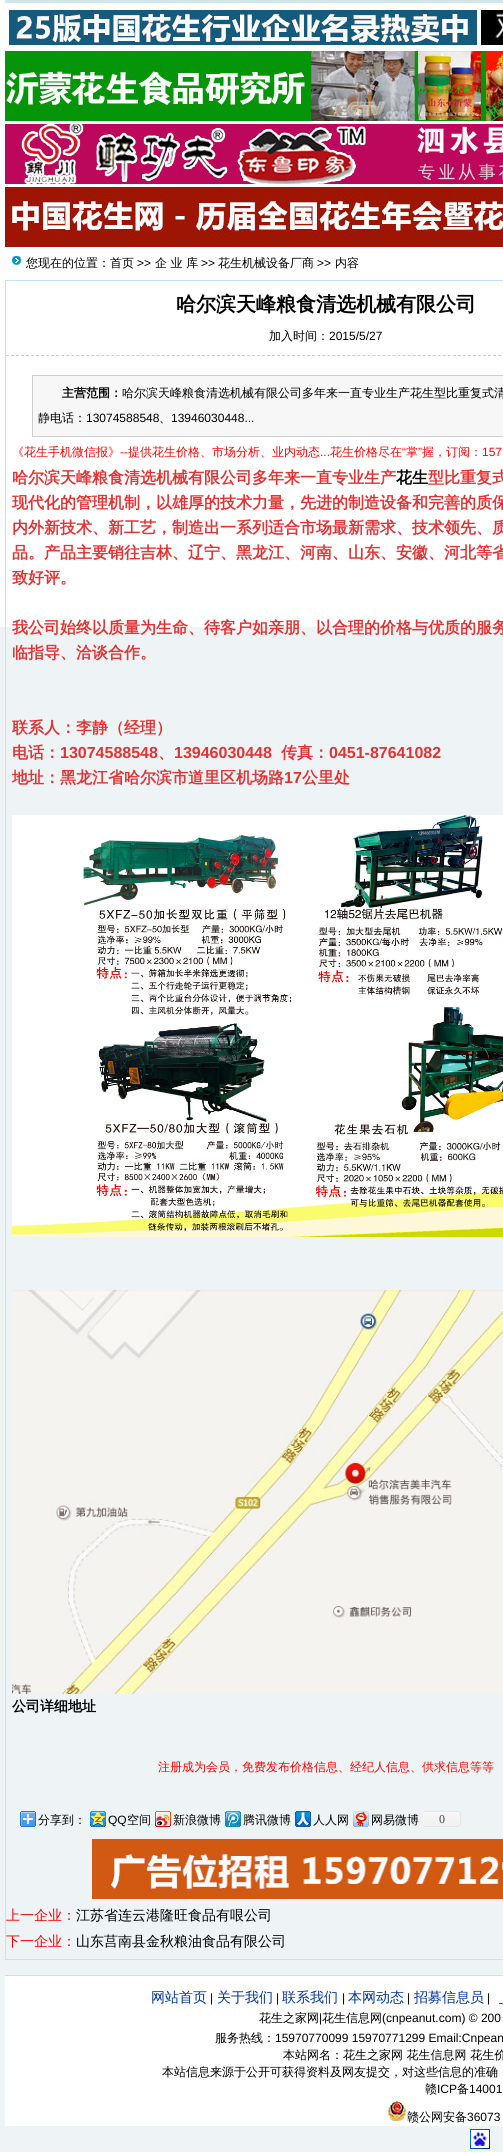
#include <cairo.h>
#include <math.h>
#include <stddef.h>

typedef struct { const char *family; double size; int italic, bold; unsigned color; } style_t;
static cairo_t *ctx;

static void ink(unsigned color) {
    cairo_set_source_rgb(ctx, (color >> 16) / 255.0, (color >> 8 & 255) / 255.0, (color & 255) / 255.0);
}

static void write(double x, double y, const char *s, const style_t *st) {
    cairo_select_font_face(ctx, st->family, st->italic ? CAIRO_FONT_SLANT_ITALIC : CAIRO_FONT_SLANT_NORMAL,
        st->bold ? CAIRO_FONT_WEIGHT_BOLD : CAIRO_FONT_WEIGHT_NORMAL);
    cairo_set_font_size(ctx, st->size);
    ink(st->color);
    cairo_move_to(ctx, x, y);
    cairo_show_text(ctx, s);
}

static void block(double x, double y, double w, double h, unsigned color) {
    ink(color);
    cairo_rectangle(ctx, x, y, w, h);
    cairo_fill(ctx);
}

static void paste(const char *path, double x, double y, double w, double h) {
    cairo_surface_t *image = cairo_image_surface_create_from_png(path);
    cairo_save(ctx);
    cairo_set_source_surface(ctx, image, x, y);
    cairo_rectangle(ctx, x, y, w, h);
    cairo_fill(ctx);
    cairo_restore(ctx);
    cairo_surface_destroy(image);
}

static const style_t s1 = {"WenQuanYi Zen Hei Medium", 12, 0, 0, 0x000000};
static const style_t s2 = {"Liberation Sans", 12, 0, 0, 0x000000};
static const style_t s3 = {"WenQuanYi Zen Hei", 20, 0, 1, 0x000000};
static const style_t s4 = {"WenQuanYi Zen Hei", 12, 0, 1, 0x000000};
static const style_t s5 = {"WenQuanYi Zen Hei Medium", 12, 0, 0, 0xff0000};
static const style_t s6 = {"Liberation Sans", 12, 0, 0, 0xff0000};
static const style_t s7 = {"WenQuanYi Zen Hei", 16, 0, 1, 0xe53333};
static const style_t s8 = {"WenQuanYi Zen Hei", 16, 0, 1, 0x000000};
static const style_t s9 = {"Liberation Sans", 16, 0, 1, 0xe53333};
static const style_t s10 = {"WenQuanYi Zen Hei", 14, 0, 1, 0x000000};
static const style_t s11 = {"Liberation Serif", 12, 0, 0, 0x454545};
static const style_t s12 = {"WenQuanYi Zen Hei Medium", 14, 0, 0, 0xff0000};
static const style_t s13 = {"WenQuanYi Zen Hei Medium", 14, 0, 0, 0x000000};
static const style_t s14 = {"WenQuanYi Zen Hei Medium", 14, 0, 0, 0x003399};

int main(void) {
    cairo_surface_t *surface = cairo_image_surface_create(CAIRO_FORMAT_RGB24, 503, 2152);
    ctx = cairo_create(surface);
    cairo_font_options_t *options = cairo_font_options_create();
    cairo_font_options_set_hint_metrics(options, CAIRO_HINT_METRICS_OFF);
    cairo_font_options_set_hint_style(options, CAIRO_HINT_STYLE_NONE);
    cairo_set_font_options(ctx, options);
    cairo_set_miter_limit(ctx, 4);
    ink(0xeef4f6);
    cairo_paint(ctx);
    block(0, 0, 503, 627, 0xffffff);
    block(5, 0, 498, 3, 0xd2e6ed);
    paste("pic1.png", 9, 10, 468, 35);
    paste("pic2.png", 481, 10, 22, 35);
    paste("pic3.png", 5, 51, 498, 70);
    paste("pic4.png", 5, 124, 498, 60);
    paste("pic5.png", 5, 187, 498, 60);
    paste("pic6.png", 12, 256, 9, 9);
    write(26, 267, "您现在的位置：首页", &s1);
    write(137, 267, ">>", &s2);
    write(155, 267, "企 业 库", &s1);
    write(201, 267, ">>", &s2);
    write(218, 267, "花生机械设备厂商", &s1);
    write(317, 267, ">>", &s2);
    write(335, 267, "内容", &s1);
    cairo_rectangle(ctx, 5.5, 280.5, 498, 1679);
    ink(0xc6dfff);
    cairo_set_line_width(ctx, 1);
    cairo_stroke(ctx);
    write(176, 311, "哈尔滨天峰粮食清选机械有限公司", &s3);
    cairo_new_path(ctx);
    cairo_move_to(ctx, 6, 355.5);
    cairo_line_to(ctx, 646, 355.5);
    ink(0xcccccc);
    cairo_set_dash(ctx, (double[]){3, 2.02}, 2, 0);
    cairo_stroke(ctx);
    write(269, 340, "加入时间：", &s1);
    write(329, 340, "2015/5/27", &s2);
    ink(0xf7f7f7);
    cairo_rectangle(ctx, 32.5, 375.5, 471, 61);
    cairo_fill_preserve(ctx);
    ink(0xcccccc);
    cairo_set_dash(ctx, NULL, 0, 0);
    cairo_stroke(ctx);
    write(62, 397, "主营范围：", &s4);
    write(122, 397, "哈尔滨天峰粮食清选机械有限公司多年来一直专业生产花生型比重复式清", &s1);
    write(38, 422, "静电话：", &s1);
    write(86, 422, "13074588548", &s2);
    write(159, 422, "、", &s1);
    write(171, 422, "13946030448...", &s2);
    write(12, 456, "《花生手机微信报》", &s5);
    write(120, 456, "--", &s6);
    write(128, 456, "提供花生价格、市场分析、业内动态", &s5);
    write(330, 456, "花生价格尽在", &s5);
    write(402, 456, "“", &s6);
    write(406, 456, "掌", &s5);
    write(418, 456, "”", &s6);
    write(422, 456, "握，订阅：", &s5);
    write(482, 456, "157", &s6);
    write(320, 456, "...", &s6);
    write(12, 483, "哈尔滨天峰粮食清选机械有限公司多年来一直专业生产", &s7);
    write(396, 483, "花生", &s8);
    write(428, 483, "型比重复式", &s7);
    write(12, 508, "现代化的管理机制，以雄厚的技术力量，先进的制造设备和完善的质保", &s7);
    write(12, 533, "内外新技术、新工艺，制造出一系列适合市场最新需求、技术领先、质", &s7);
    write(12, 558, "品。产品主要销往吉林、辽宁、黑龙江、河南、山东、安徽、河北等省", &s7);
    write(12, 583, "致好评。", &s7);
    write(12, 633, "我公司始终以质量为生命、待客户如亲朋、以合理的价格与优质的服务", &s7);
    write(12, 658, "临指导、洽谈合作。", &s7);
    write(12, 733, "联系人：李静（经理）", &s7);
    write(12, 758, "电话：", &s7);
    write(60, 758, "13074588548", &s9);
    write(158, 758, "、", &s7);
    write(174, 758, "13946030448", &s9);
    write(281, 758, "传真：", &s7);
    write(329, 758, "0451-87641082", &s9);
    write(12, 783, "地址：黑龙江省哈尔滨市道里区机场路", &s7);
    write(284, 783, "17", &s9);
    write(302, 783, "公里处", &s7);
    paste("pic7.png", 12, 815, 491, 422);
    paste("pic8.png", 12, 1290, 491, 404);
    write(12, 1711, "公司详细地址", &s10);
    write(158, 1771, "注册成为会员，免费发布价格信息、经纪人信息、供求信息等等", &s5);
    paste("pic9.png", 20, 1811, 16, 16);
    write(38, 1824, "分享到：", &s1);
    paste("pic10.png", 90, 1811, 16, 16);
    write(108, 1824, "QQ", &s2);
    write(127, 1824, "空间", &s1);
    paste("pic11.png", 155, 1811, 16, 16);
    write(173, 1824, "新浪微博", &s1);
    paste("pic12.png", 225, 1811, 16, 16);
    write(243, 1824, "腾讯微博", &s1);
    paste("pic13.png", 295, 1811, 16, 16);
    write(313, 1824, "人人网", &s1);
    paste("pic14.png", 353, 1811, 16, 16);
    write(371, 1824, "网易微博", &s1);
    paste("pic15.png", 419, 1811, 42, 16);
    write(439, 1823, "0", &s11);
    paste("pic16.png", 92, 1839, 411, 60);
    write(6, 1920, "上一企业：", &s12);
    write(76, 1920, "江苏省连云港隆旺食品有哏公司", &s13);
    write(6, 1946, "下一企业：", &s12);
    write(76, 1946, "山东莒南县金秋粮油食品有限公司", &s13);
    block(5, 1976, 498, 150, 0xffffff);
    block(5, 1975, 498, 1, 0xc6dfff);
    write(151, 2002, "网站首页", &s14);
    write(210, 2002, "|", &s2);
    write(217, 2002, "关于我们", &s14);
    write(276, 2002, "|", &s2);
    write(282, 2002, "联系我们", &s14);
    write(342, 2002, "|", &s2);
    write(348, 2002, "本网动态", &s14);
    write(407, 2002, "|", &s2);
    write(414, 2002, "招募信息员", &s14);
    write(487, 2002, "|", &s2);
    block(499, 2003, 4, 1, 0xff0000);
    write(259, 2022, "花生之家网", &s1);
    write(319, 2022, "|", &s2);
    write(322, 2022, "花生信息网", &s1);
    write(382, 2022, "(cnpeanut.com) © 200", &s2);
    write(215, 2042, "服务热线：", &s1);
    write(275, 2042, "15970770099 15970771299 Email:Cnpean", &s2);
    write(283, 2059, "本站网名：花生之家网 花生信息网 花生价", &s1);
    write(162, 2076, "本站信息来源于公开可获得资料及网友提交，对这些信息的准确", &s1);
    write(425, 2093, "赣", &s1);
    write(437, 2093, "ICP", &s2);
    write(457, 2093, "备", &s1);
    write(469, 2093, "14001", &s2);
    paste("pic17.png", 388, 2101, 18, 20);
    write(407, 2121, "赣公网安备", &s1);
    write(467, 2121, "36073", &s2);
    paste("pic18.png", 470, 2129, 20, 20);
    cairo_surface_write_to_png(surface, "screenshot.png");
    cairo_font_options_destroy(options);
    cairo_destroy(ctx);
    cairo_surface_destroy(surface);
    return 0;
}
